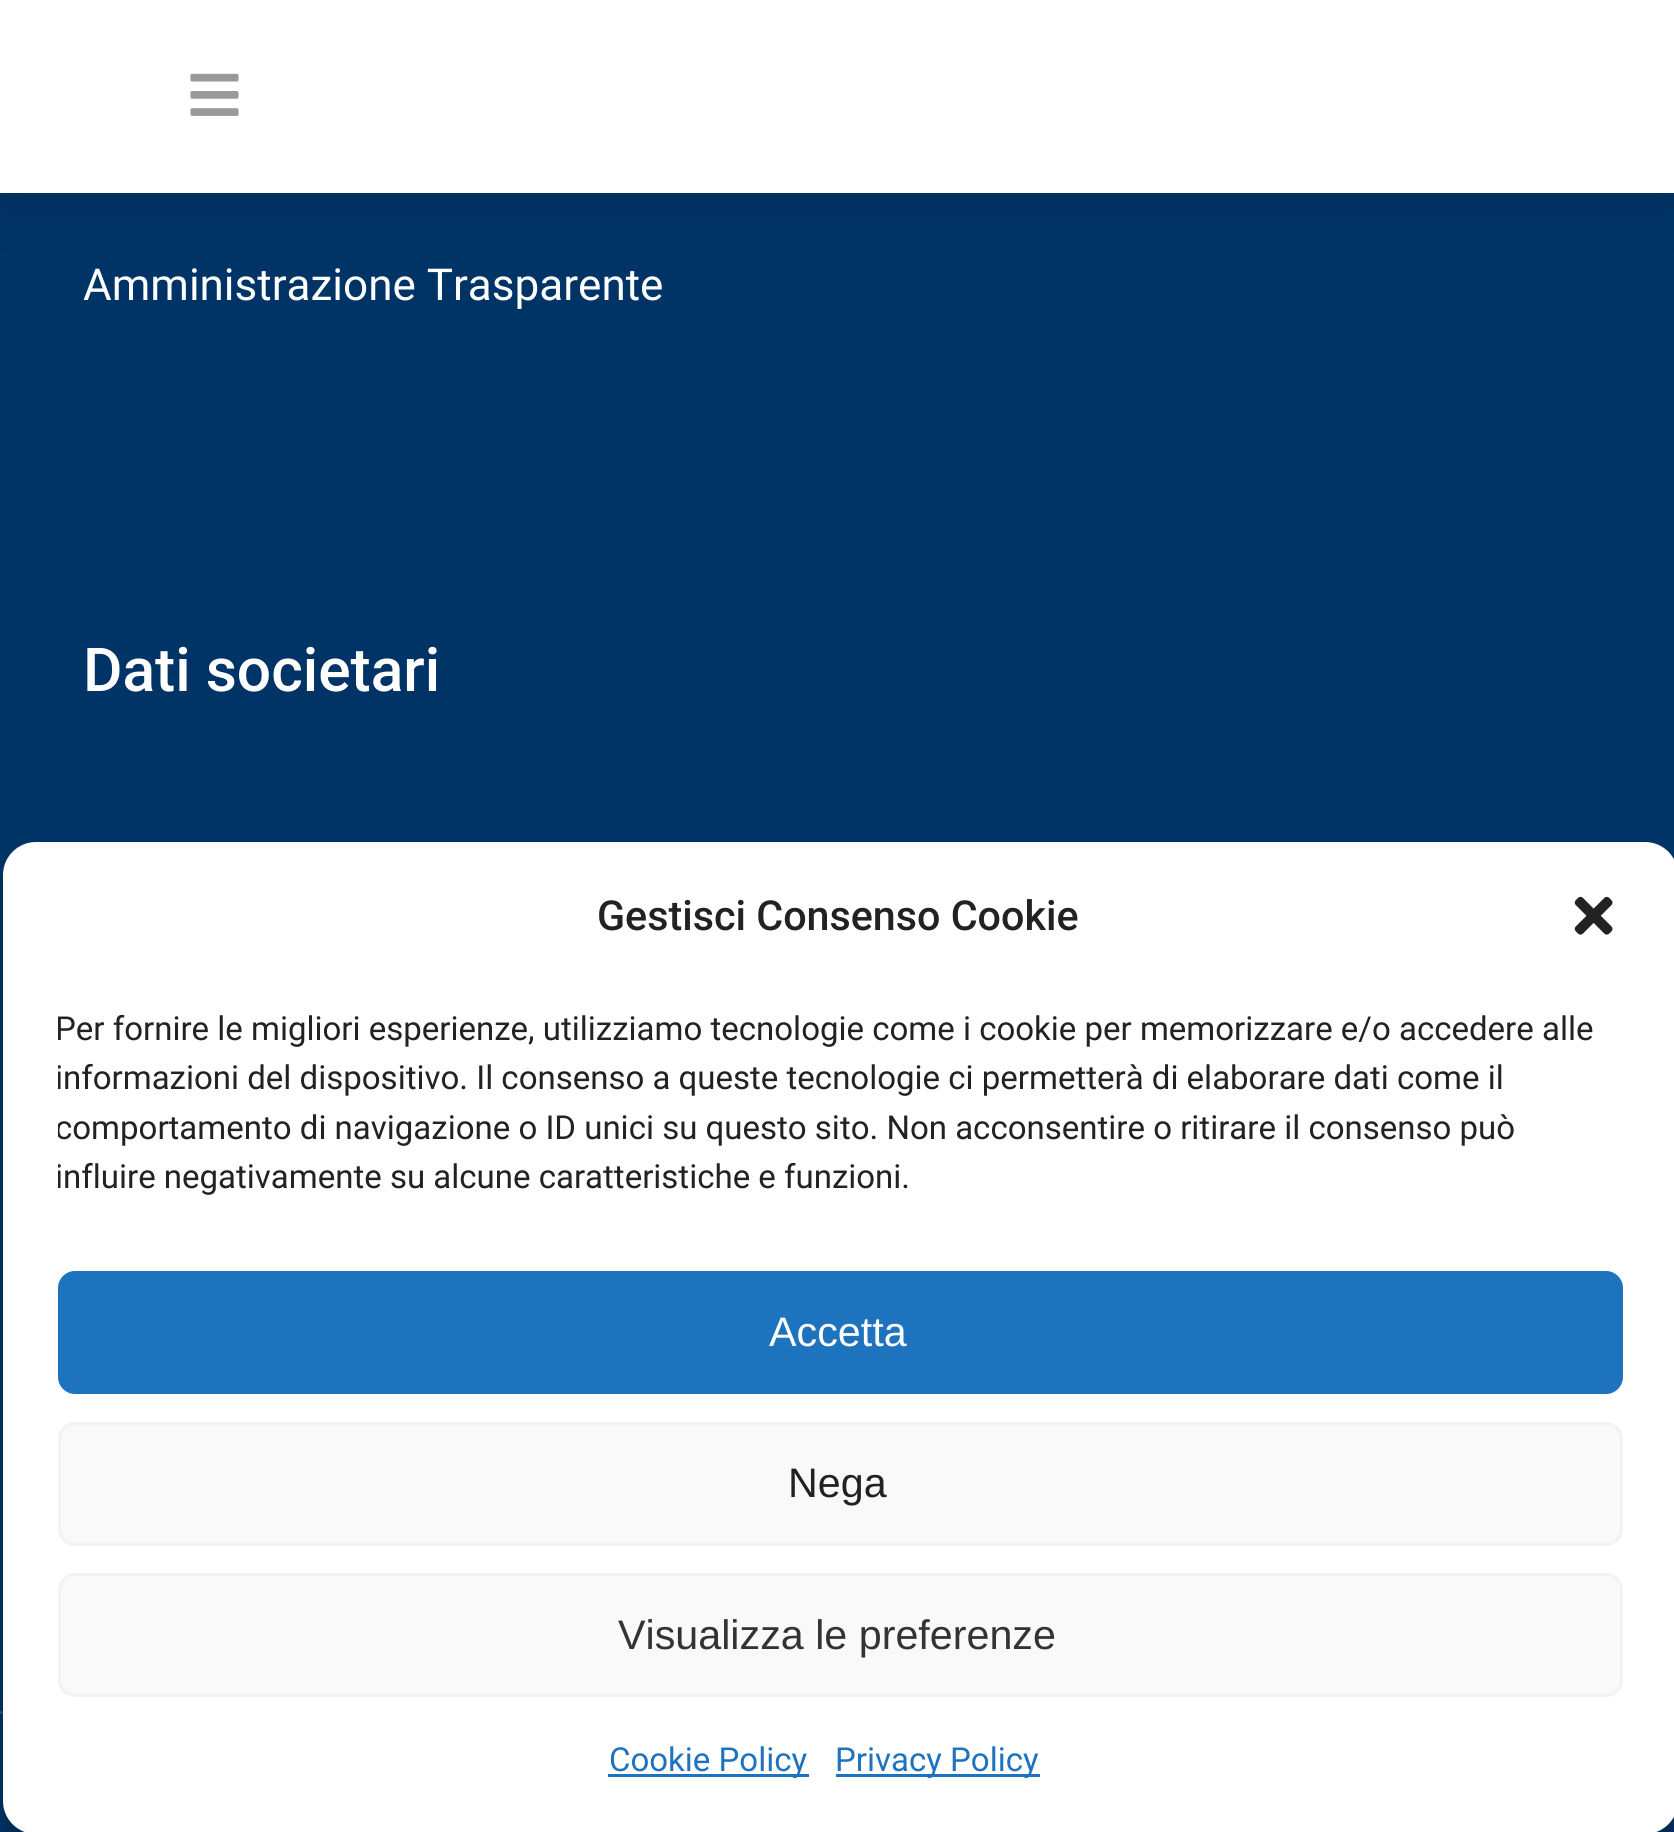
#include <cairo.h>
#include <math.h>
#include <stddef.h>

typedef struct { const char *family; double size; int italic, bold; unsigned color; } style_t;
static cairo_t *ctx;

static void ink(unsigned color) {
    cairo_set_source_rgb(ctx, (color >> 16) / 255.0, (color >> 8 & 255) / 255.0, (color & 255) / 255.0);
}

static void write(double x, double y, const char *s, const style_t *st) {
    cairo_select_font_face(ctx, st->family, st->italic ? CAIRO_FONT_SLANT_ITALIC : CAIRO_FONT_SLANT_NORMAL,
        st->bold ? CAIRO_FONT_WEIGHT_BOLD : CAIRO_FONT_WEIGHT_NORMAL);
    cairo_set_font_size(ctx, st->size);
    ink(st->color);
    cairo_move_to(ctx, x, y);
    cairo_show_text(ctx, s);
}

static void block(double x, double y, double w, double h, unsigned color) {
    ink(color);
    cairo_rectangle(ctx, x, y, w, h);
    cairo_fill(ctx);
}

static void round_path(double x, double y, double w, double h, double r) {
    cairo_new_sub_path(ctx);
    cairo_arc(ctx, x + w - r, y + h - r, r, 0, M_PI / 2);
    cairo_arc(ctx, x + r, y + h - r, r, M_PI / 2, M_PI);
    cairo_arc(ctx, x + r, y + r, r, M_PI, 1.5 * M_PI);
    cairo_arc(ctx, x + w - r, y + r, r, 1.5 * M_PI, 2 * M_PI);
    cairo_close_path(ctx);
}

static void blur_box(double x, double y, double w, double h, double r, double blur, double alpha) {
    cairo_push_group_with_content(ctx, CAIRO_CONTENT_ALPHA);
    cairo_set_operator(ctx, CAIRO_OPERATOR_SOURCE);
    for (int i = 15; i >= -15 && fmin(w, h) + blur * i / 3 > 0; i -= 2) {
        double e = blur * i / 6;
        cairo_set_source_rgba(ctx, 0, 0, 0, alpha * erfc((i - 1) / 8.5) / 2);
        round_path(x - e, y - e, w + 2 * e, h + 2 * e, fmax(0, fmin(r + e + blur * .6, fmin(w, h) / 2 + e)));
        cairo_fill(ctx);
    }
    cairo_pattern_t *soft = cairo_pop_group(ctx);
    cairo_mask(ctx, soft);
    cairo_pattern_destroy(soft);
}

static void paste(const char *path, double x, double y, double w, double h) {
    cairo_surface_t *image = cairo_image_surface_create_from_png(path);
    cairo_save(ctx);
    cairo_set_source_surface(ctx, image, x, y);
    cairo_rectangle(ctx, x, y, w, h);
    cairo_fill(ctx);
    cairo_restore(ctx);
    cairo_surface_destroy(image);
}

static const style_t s1 = {"Roboto", 44, 0, 0, 0xffffff};
static const style_t s2 = {"Roboto Medium", 60.5, 0, 0, 0xffffff};
static const style_t s3 = {"Roboto Medium", 41.25, 0, 0, 0x222222};
static const style_t s4 = {"Roboto", 33, 0, 0, 0x222222};
static const style_t s5 = {"Liberation Sans", 41.25, 0, 0, 0xffffff};
static const style_t s6 = {"Liberation Sans", 41.25, 0, 0, 0x222222};
static const style_t s7 = {"Liberation Sans", 41.25, 0, 0, 0x333333};
static const style_t s8 = {"Roboto", 33, 0, 0, 0x1e73be};

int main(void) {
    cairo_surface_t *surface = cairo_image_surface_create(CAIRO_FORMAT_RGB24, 1674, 1832);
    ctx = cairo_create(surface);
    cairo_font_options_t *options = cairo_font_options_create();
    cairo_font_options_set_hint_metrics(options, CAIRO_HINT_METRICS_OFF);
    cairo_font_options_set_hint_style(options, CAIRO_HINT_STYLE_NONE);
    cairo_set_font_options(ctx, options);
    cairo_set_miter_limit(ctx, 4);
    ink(0x003366);
    cairo_paint(ctx);
    ink(0x000000);
    blur_box(0, 0, 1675, 193, 0, 41, 0.1);
    block(0, 0, 1674, 193, 0xffffff);
    paste("pic1.png", 190, 73, 49, 43);
    write(83, 300, "Amministrazione Trasparente", &s1);
    write(83, 691, "Dati societari", &s2);
    block(0, 1711, 3, 3, 0x24507b);
    cairo_save(ctx);
    cairo_set_fill_rule(ctx, CAIRO_FILL_RULE_EVEN_ODD);
    cairo_new_path(ctx);
    cairo_move_to(ctx, 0, 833);
    cairo_line_to(ctx, 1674, 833);
    cairo_line_to(ctx, 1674, 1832);
    cairo_line_to(ctx, 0, 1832);
    cairo_close_path(ctx);
    cairo_move_to(ctx, 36, 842);
    cairo_line_to(ctx, 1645, 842);
    cairo_curve_to(ctx, 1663, 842, 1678, 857, 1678, 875);
    cairo_line_to(ctx, 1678, 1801);
    cairo_curve_to(ctx, 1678, 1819, 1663, 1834, 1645, 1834);
    cairo_line_to(ctx, 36, 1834);
    cairo_curve_to(ctx, 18, 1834, 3, 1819, 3, 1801);
    cairo_line_to(ctx, 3, 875);
    cairo_curve_to(ctx, 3, 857, 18, 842, 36, 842);
    cairo_close_path(ctx);
    cairo_clip(ctx);
    ink(0x000000);
    blur_box(3, 858, 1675, 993, 33, 8, 0.23);
    cairo_restore(ctx);
    ink(0xffffff);
    round_path(3, 842, 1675, 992, 33);
    cairo_fill(ctx);
    write(597, 930, "Gestisci Consenso Cookie", &s3);
    paste("pic2.png", 1574, 896, 39, 39);
    cairo_save(ctx);
    cairo_rectangle(ctx, 58, 1004, 1565, 212);
    cairo_clip(ctx);
    write(55, 1040, "Per fornire le migliori esperienze, utilizziamo tecnologie come i cookie per memorizzare e/o accedere alle", &s4);
    write(55, 1089, "informazioni del dispositivo. Il consenso a queste tecnologie ci permetterà di elaborare dati come il", &s4);
    write(55, 1139, "comportamento di navigazione o ID unici su questo sito. Non acconsentire o ritirare il consenso può", &s4);
    write(55, 1188, "influire negativamente su alcune caratteristiche e funzioni.", &s4);
    cairo_restore(ctx);
    ink(0x1e73be);
    round_path(59.5, 1272.5, 1562, 120, 15.5);
    cairo_fill_preserve(ctx);
    cairo_set_line_width(ctx, 3);
    cairo_stroke(ctx);
    write(769, 1346, "Accetta", &s5);
    ink(0xf9f9f9);
    round_path(59.5, 1423.5, 1562, 121, 15.5);
    cairo_fill_preserve(ctx);
    ink(0xf2f2f2);
    cairo_stroke(ctx);
    write(788, 1497, "Nega", &s6);
    ink(0xf9f9f9);
    round_path(59.5, 1574.5, 1562, 121, 15.5);
    cairo_fill_preserve(ctx);
    ink(0xf2f2f2);
    cairo_stroke(ctx);
    write(618, 1649, "Visualizza le preferenze", &s7);
    block(608, 1774, 201, 3, 0x1e73be);
    write(609, 1771, "Cookie Policy", &s8);
    block(836, 1774, 204, 3, 0x1e73be);
    write(835, 1771, "Privacy Policy", &s8);
    cairo_surface_write_to_png(surface, "screenshot.png");
    cairo_font_options_destroy(options);
    cairo_destroy(ctx);
    cairo_surface_destroy(surface);
    return 0;
}
